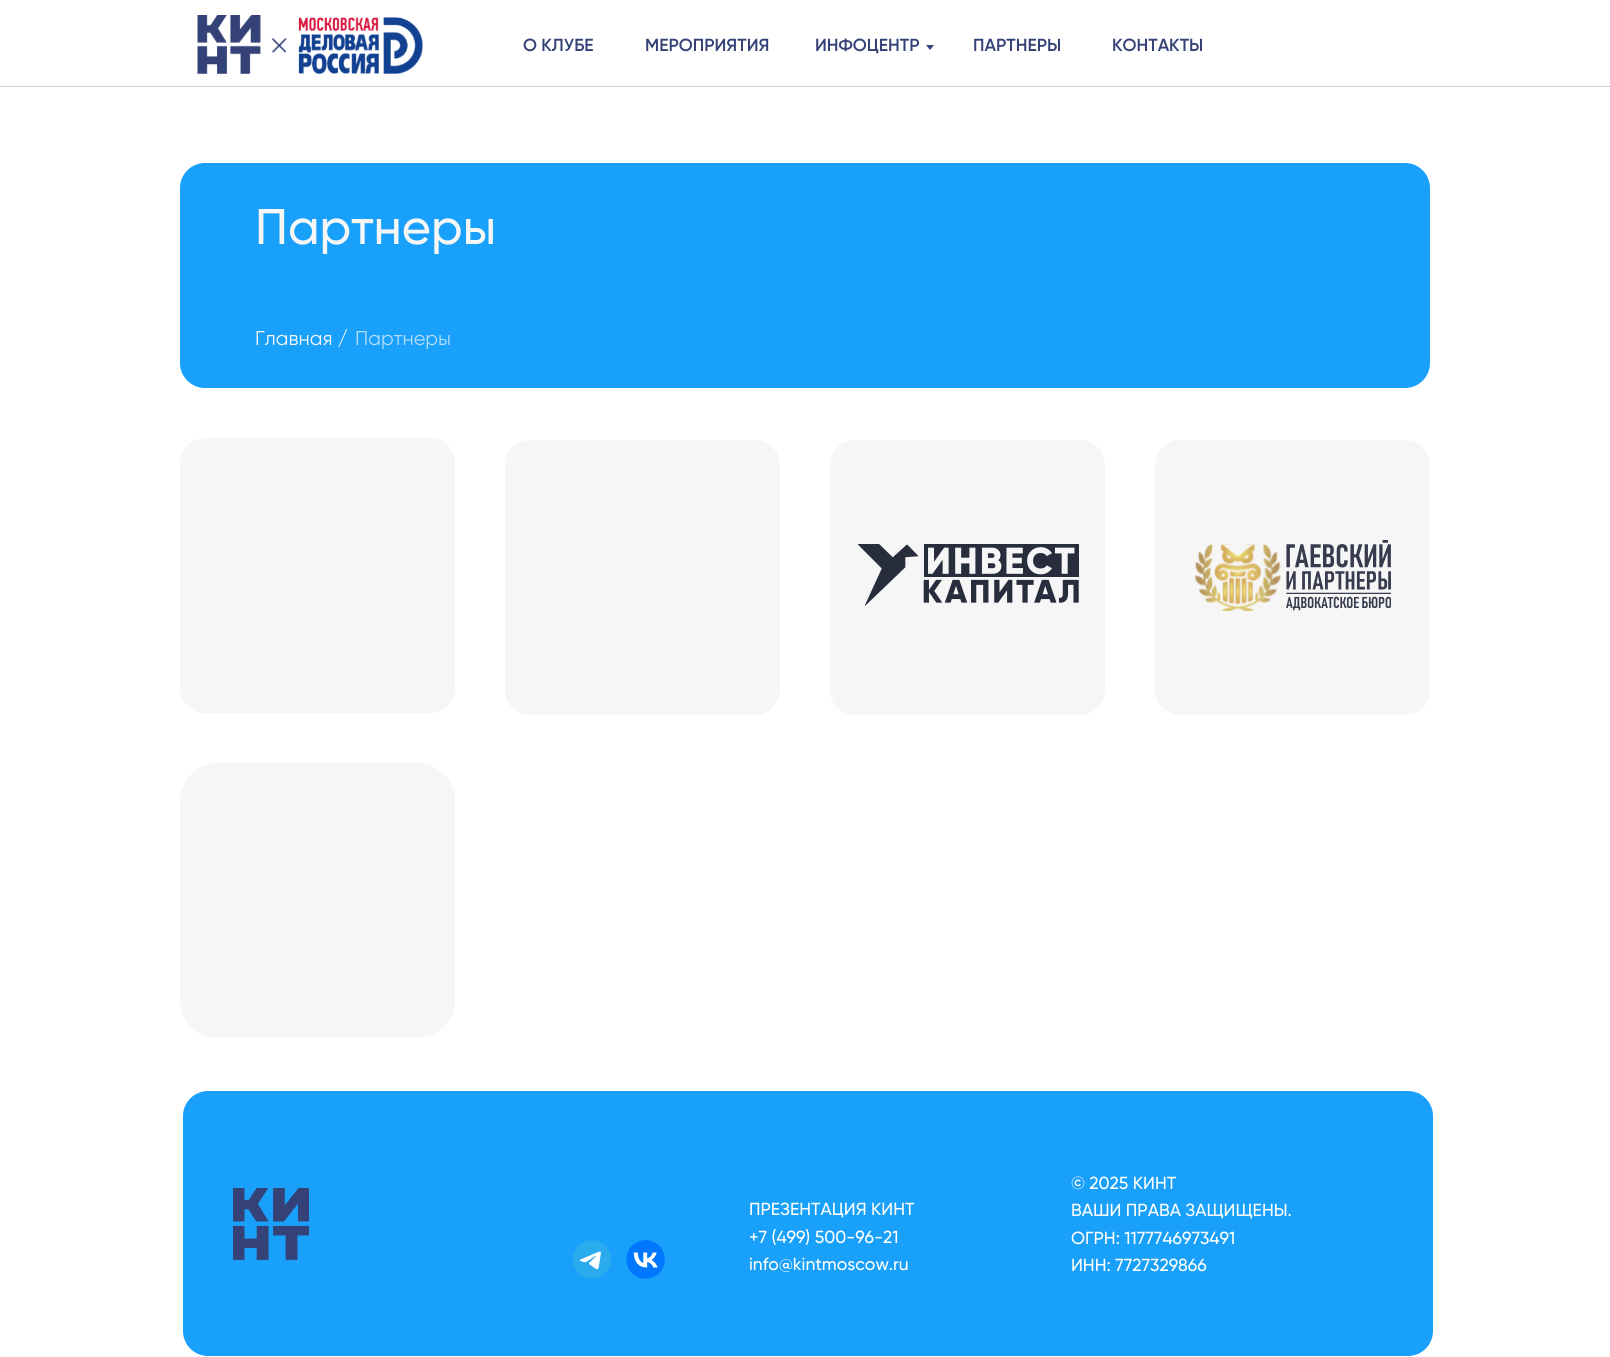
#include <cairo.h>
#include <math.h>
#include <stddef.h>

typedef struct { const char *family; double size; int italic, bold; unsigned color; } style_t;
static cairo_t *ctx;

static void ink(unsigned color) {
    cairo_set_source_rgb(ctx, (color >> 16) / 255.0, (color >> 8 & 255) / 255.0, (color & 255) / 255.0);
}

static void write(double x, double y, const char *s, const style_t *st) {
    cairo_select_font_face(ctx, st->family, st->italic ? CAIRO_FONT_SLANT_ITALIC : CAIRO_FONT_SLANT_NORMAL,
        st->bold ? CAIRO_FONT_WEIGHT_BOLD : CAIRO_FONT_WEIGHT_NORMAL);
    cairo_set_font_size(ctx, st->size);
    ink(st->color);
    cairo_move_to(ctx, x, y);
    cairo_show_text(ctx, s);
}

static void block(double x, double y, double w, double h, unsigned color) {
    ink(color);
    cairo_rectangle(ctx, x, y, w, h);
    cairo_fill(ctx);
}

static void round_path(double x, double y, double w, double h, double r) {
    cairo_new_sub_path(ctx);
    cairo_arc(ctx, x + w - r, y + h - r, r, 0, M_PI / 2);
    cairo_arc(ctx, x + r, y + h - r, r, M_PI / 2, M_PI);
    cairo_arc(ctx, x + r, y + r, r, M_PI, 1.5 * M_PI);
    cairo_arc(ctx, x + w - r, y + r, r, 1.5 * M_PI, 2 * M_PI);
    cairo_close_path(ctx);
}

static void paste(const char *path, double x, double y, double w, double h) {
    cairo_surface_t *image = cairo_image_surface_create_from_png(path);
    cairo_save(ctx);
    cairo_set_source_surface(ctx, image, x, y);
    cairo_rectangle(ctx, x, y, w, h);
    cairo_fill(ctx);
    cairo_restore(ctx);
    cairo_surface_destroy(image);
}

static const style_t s1 = {"Gilroy SemiBold", 17.5, 0, 0, 0x344277};
static const style_t s2 = {"Gilroy Medium", 50, 0, 0, 0xf6f6f6};
static const style_t s3 = {"Gilroy", 20, 0, 0, 0xf6f6f6};
static const style_t s4 = {"Gilroy", 20, 0, 0, 0xb3dcf8};
static const style_t s5 = {"Gilroy Medium", 17.5, 0, 0, 0xffffff};

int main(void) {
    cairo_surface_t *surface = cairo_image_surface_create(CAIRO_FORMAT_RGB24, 1610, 1357);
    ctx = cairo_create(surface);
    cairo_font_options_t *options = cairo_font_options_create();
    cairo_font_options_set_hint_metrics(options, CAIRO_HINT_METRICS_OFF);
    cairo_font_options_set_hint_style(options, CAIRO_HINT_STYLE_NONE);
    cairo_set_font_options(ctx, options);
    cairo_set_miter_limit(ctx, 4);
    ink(0xffffff);
    cairo_paint(ctx);
    paste("pic1.png", 197, 15, 226, 59);
    write(523, 51, "О КЛУБЕ", &s1);
    write(645, 51, "МЕРОПРИЯТИЯ", &s1);
    write(815, 51, "ИНФОЦЕНТР", &s1);
    cairo_new_path(ctx);
    cairo_move_to(ctx, 926, 45);
    cairo_line_to(ctx, 934, 45);
    cairo_line_to(ctx, 930, 50);
    cairo_close_path(ctx);
    cairo_fill(ctx);
    write(973, 51, "ПАРТНЕРЫ", &s1);
    write(1112, 51, "КОНТАКТЫ", &s1);
    block(0, 86, 1610, 1, 0xccd0dd);
    ink(0x18a0fb);
    round_path(180, 163, 1250, 225, 25);
    cairo_fill(ctx);
    write(255, 244, "Партнеры", &s2);
    write(255, 345, "Главная /", &s3);
    write(355, 345, "Партнеры", &s4);
    ink(0xf6f6f6);
    round_path(180, 438, 275, 275, 25);
    cairo_fill(ctx);
    round_path(505, 440, 275, 275, 25);
    cairo_fill(ctx);
    round_path(830, 440, 275, 275, 25);
    cairo_fill(ctx);
    round_path(1155, 440, 275, 275, 25);
    cairo_fill(ctx);
    paste("pic2.png", 858, 544, 221, 62);
    paste("pic3.png", 1195, 540, 196, 71);
    round_path(180, 763, 275, 275, 38);
    cairo_fill(ctx);
    ink(0x18a0fb);
    round_path(183, 1091, 1250, 265, 25);
    cairo_fill(ctx);
    paste("pic4.png", 233, 1188, 76, 72);
    paste("pic5.png", 573, 1240, 38, 39);
    paste("pic6.png", 626, 1240, 39, 39);
    write(749, 1215, "ПРЕЗЕНТАЦИЯ КИНТ", &s5);
    write(749, 1243, "+7 (499) 500-96-21", &s5);
    write(749, 1270, "info@kintmoscow.ru", &s5);
    write(1071, 1189, "© 2025 КИНТ", &s5);
    write(1071, 1216, "ВАШИ ПРАВА ЗАЩИЩЕНЫ.", &s5);
    write(1071, 1244, "ОГРН: 1177746973491", &s5);
    write(1071, 1271, "ИНН: 7727329866", &s5);
    cairo_surface_write_to_png(surface, "screenshot.png");
    cairo_font_options_destroy(options);
    cairo_destroy(ctx);
    cairo_surface_destroy(surface);
    return 0;
}
